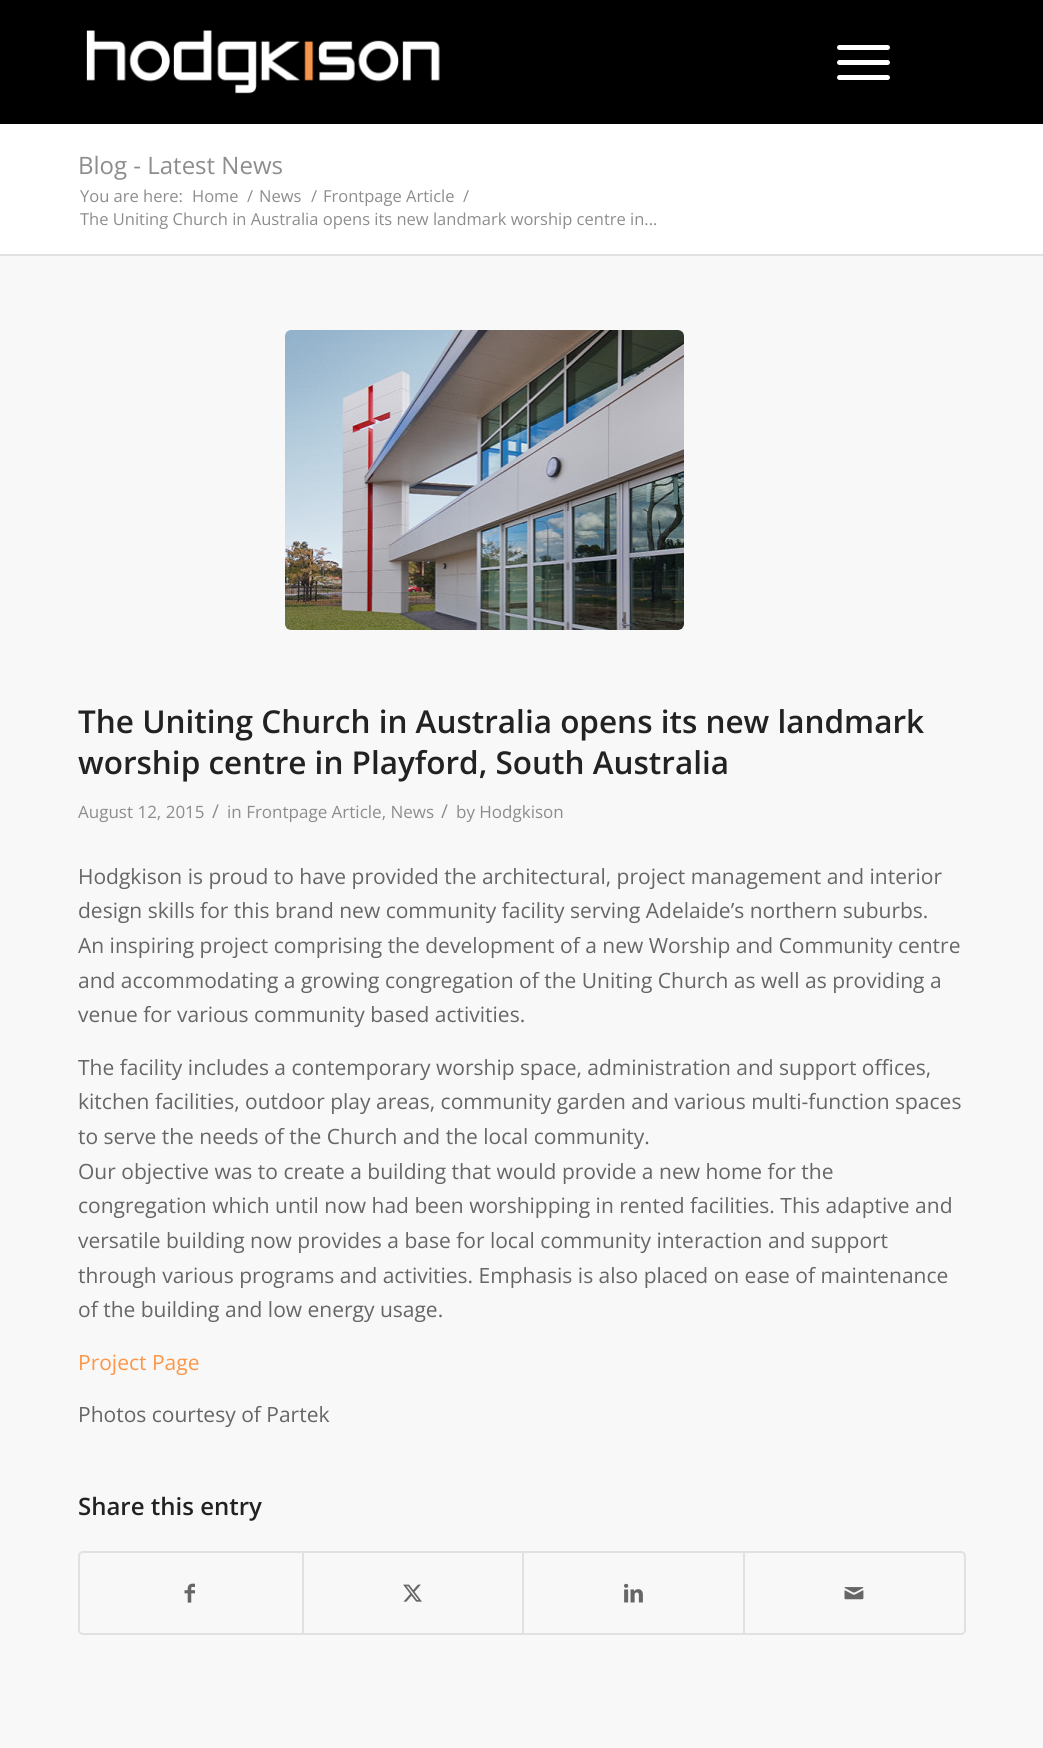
#include <cairo.h>
#include <math.h>
#include <stddef.h>

typedef struct { const char *family; double size; int italic, bold; unsigned color; } style_t;
static cairo_t *ctx;

static void ink(unsigned color) {
    cairo_set_source_rgb(ctx, (color >> 16) / 255.0, (color >> 8 & 255) / 255.0, (color & 255) / 255.0);
}

static void write(double x, double y, const char *s, const style_t *st) {
    cairo_select_font_face(ctx, st->family, st->italic ? CAIRO_FONT_SLANT_ITALIC : CAIRO_FONT_SLANT_NORMAL,
        st->bold ? CAIRO_FONT_WEIGHT_BOLD : CAIRO_FONT_WEIGHT_NORMAL);
    cairo_set_font_size(ctx, st->size);
    ink(st->color);
    cairo_move_to(ctx, x, y);
    cairo_show_text(ctx, s);
}

static void block(double x, double y, double w, double h, unsigned color) {
    ink(color);
    cairo_rectangle(ctx, x, y, w, h);
    cairo_fill(ctx);
}

static void round_path(double x, double y, double w, double h, double r) {
    cairo_new_sub_path(ctx);
    cairo_arc(ctx, x + w - r, y + h - r, r, 0, M_PI / 2);
    cairo_arc(ctx, x + r, y + h - r, r, M_PI / 2, M_PI);
    cairo_arc(ctx, x + r, y + r, r, M_PI, 1.5 * M_PI);
    cairo_arc(ctx, x + w - r, y + r, r, 1.5 * M_PI, 2 * M_PI);
    cairo_close_path(ctx);
}

static void paste(const char *path, double x, double y, double w, double h) {
    cairo_surface_t *image = cairo_image_surface_create_from_png(path);
    cairo_save(ctx);
    cairo_set_source_surface(ctx, image, x, y);
    cairo_rectangle(ctx, x, y, w, h);
    cairo_fill(ctx);
    cairo_restore(ctx);
    cairo_surface_destroy(image);
}

static const style_t s1 = {"Open Sans", 24, 0, 0, 0x8d8d8d};
static const style_t s2 = {"Open Sans", 16.5, 0, 0, 0x8d8d8d};
static const style_t s3 = {"Open Sans SemiBold", 31.5, 0, 0, 0x222222};
static const style_t s4 = {"Open Sans", 17, 0, 0, 0x8d8d8d};
static const style_t s5 = {"Open Sans", 19, 0, 0, 0x8d8d8d};
static const style_t s6 = {"Open Sans", 21, 0, 0, 0x666666};
static const style_t s7 = {"Open Sans", 21, 0, 0, 0xfc9648};
static const style_t s8 = {"Open Sans SemiBold", 24, 0, 0, 0x222222};

int main(void) {
    cairo_surface_t *surface = cairo_image_surface_create(CAIRO_FORMAT_RGB24, 1043, 1748);
    ctx = cairo_create(surface);
    cairo_font_options_t *options = cairo_font_options_create();
    cairo_font_options_set_hint_metrics(options, CAIRO_HINT_METRICS_OFF);
    cairo_font_options_set_hint_style(options, CAIRO_HINT_STYLE_NONE);
    cairo_set_font_options(ctx, options);
    cairo_set_miter_limit(ctx, 4);
    ink(0xffffff);
    cairo_paint(ctx);
    block(0, 0, 1043, 124, 0x000000);
    paste("pic1.png", 86, 30, 354, 64);
    ink(0xffffff);
    round_path(837, 60, 53, 5, 2.5);
    cairo_fill(ctx);
    round_path(837, 45, 53, 5, 2.5);
    cairo_fill(ctx);
    round_path(837, 75, 53, 5, 2.5);
    cairo_fill(ctx);
    write(78, 174, "Blog - Latest News", &s1);
    write(80, 202, "You are here:", &s2);
    write(192, 202, "Home", &s2);
    write(247, 202, "/", &s2);
    write(259, 202, "News", &s2);
    write(311, 202, "/", &s2);
    write(323, 202, "Frontpage Article", &s2);
    write(463, 202, "/", &s2);
    write(80, 225, "The Uniting Church in Australia opens its new landmark worship centre in...", &s2);
    block(0, 256, 1043, 1492, 0xf8f8f8);
    block(0, 254, 1043, 2, 0xe1e1e1);
    paste("pic2.png", 285, 330, 399, 300);
    write(78, 733, "The Uniting Church in Australia opens its new landmark", &s3);
    write(78, 774, "worship centre in Playford, South Australia", &s3);
    write(78, 818, "August 12, 2015", &s4);
    write(212, 818, "/", &s5);
    write(227, 818, "in Frontpage Article, News", &s4);
    write(441, 818, "/", &s5);
    write(456, 818, "by Hodgkison", &s4);
    write(78, 884, "Hodgkison is proud to have provided the architectural, project management and interior", &s6);
    write(78, 918, "design skills for this brand new community facility serving Adelaide’s northern suburbs.", &s6);
    write(78, 953, "An inspiring project comprising the development of a new Worship and Community centre", &s6);
    write(78, 988, "and accommodating a growing congregation of the Uniting Church as well as providing a", &s6);
    write(78, 1022, "venue for various community based activities.", &s6);
    write(78, 1075, "The facility includes a contemporary worship space, administration and support offices,", &s6);
    write(78, 1109, "kitchen facilities, outdoor play areas, community garden and various multi-function spaces", &s6);
    write(78, 1144, "to serve the needs of the Church and the local community.", &s6);
    write(78, 1179, "Our objective was to create a building that would provide a new home for the", &s6);
    write(78, 1213, "congregation which until now had been worshipping in rented facilities. This adaptive and", &s6);
    write(78, 1248, "versatile building now provides a base for local community interaction and support", &s6);
    write(78, 1283, "through various programs and activities. Emphasis is also placed on ease of maintenance", &s6);
    write(78, 1317, "of the building and low energy usage.", &s6);
    write(78, 1370, "Project Page", &s7);
    write(78, 1422, "Photos courtesy of Partek", &s6);
    write(78, 1515, "Share this entry", &s8);
    round_path(79, 1552, 886, 82, 4);
    ink(0xe1e1e1);
    cairo_stroke(ctx);
    paste("pic3.png", 184, 1583, 11, 20);
    block(302, 1553, 2, 81, 0xe1e1e1);
    paste("pic4.png", 403, 1584, 19, 18);
    block(522, 1553, 2, 81, 0xe1e1e1);
    paste("pic5.png", 624, 1583, 19, 20);
    block(743, 1553, 2, 81, 0xe1e1e1);
    paste("pic6.png", 844, 1587, 20, 13);
    cairo_surface_write_to_png(surface, "screenshot.png");
    cairo_font_options_destroy(options);
    cairo_destroy(ctx);
    cairo_surface_destroy(surface);
    return 0;
}
